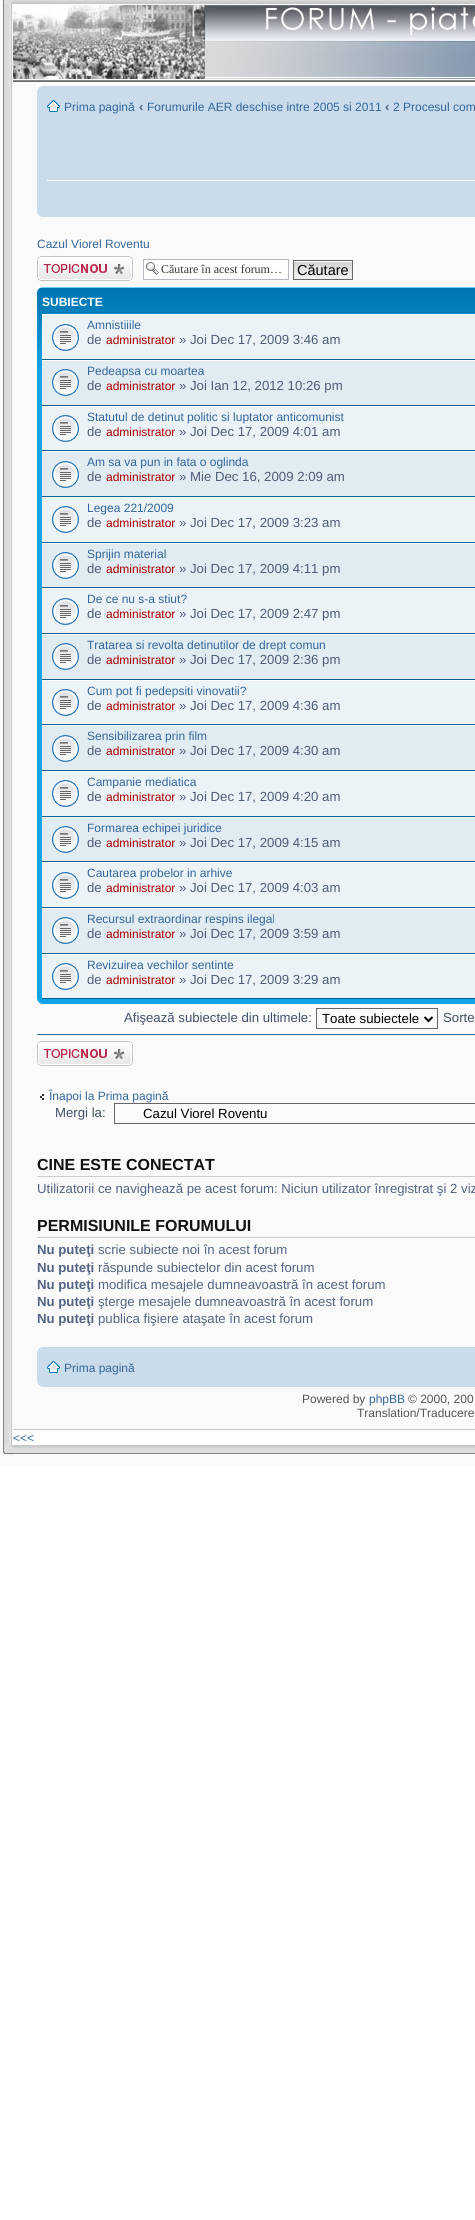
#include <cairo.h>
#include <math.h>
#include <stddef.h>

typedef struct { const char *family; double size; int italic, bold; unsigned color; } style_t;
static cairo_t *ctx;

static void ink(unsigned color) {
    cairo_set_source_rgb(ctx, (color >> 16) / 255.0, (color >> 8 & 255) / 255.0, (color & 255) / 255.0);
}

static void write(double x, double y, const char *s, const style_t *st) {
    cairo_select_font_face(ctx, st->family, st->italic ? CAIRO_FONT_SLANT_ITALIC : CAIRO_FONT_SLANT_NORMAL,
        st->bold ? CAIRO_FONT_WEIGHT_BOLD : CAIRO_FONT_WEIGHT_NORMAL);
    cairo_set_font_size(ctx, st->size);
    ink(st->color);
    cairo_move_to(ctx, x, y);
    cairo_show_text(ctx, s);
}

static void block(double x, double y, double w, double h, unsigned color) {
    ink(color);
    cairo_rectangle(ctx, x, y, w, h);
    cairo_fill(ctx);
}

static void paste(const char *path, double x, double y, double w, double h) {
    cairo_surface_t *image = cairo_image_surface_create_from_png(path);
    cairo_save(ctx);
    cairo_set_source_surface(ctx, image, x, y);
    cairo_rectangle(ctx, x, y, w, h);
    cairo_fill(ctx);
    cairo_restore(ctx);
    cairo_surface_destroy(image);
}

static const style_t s1 = {"Liberation Sans", 12, 0, 0, 0x336699};
static const style_t s2 = {"Liberation Sans", 13.2, 0, 1, 0x536482};
static const style_t s3 = {"Liberation Serif", 12, 0, 0, 0x333333};
static const style_t s4 = {"Liberation Sans", 14.5, 0, 0, 0x000000};
static const style_t s5 = {"Liberation Sans", 12, 0, 1, 0xffffff};
static const style_t s6 = {"Liberation Sans", 13.2, 0, 0, 0x4c5d77};
static const style_t s7 = {"Liberation Sans", 12, 0, 0, 0xaa0000};
static const style_t s8 = {"Liberation Sans", 13.2, 0, 0, 0x425067};
static const style_t s9 = {"Liberation Sans", 13.25, 0, 0, 0x000000};
static const style_t s10 = {"Liberation Sans", 16, 0, 1, 0x111111};
static const style_t s11 = {"Liberation Sans", 13.2, 0, 0, 0x536482};
static const style_t s12 = {"Liberation Sans", 12, 0, 0, 0x555555};

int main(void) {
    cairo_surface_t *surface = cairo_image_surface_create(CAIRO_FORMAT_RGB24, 475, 2220);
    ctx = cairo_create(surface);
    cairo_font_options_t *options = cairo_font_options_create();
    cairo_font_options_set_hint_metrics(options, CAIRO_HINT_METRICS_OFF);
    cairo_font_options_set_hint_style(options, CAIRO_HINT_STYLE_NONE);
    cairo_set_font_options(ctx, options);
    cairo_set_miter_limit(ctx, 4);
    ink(0xffffff);
    cairo_paint(ctx);
    block(0, 0, 475, 1467, 0xfafafa);
    paste("pic1.png", 3, 0, 10, 4);
    paste("pic2.png", 13, 0, 462, 4);
    paste("pic3.png", 3, 4, 9, 1441);
    paste("pic4.png", 13, 79, 462, 3);
    paste("pic5.png", 13, 4, 462, 75);
    block(37, 86, 438, 131, 0xcadceb);
    paste("pic6.png", 37, 86, 5, 5);
    block(47, 180, 428, 1, 0xffffff);
    paste("pic7.png", 47, 100, 13, 12);
    write(64, 111, "Prima pagină", &s1);
    write(139, 111, "‹", &s2);
    write(147, 111, "Forumurile AER deschise intre 2005 si 2011", &s1);
    write(385, 111, "‹", &s2);
    write(393, 111, "2 Procesul com", &s1);
    paste("pic8.png", 37, 212, 5, 5);
    write(37, 248, "Cazul Viorel Roventu", &s1);
    paste("pic9.png", 37, 256, 96, 25);
    block(144, 260, 144, 19, 0xffffff);
    paste("pic10.png", 146, 262, 13, 13);
    cairo_rectangle(ctx, 143.5, 259.5, 145, 20);
    ink(0xb4bac0);
    cairo_set_line_width(ctx, 1);
    cairo_stroke(ctx);
    write(161, 273, "Căutare în acest forum…", &s3);
    paste("pic11.png", 294, 261, 58, 18);
    cairo_rectangle(ctx, 293.5, 260.5, 59, 19);
    ink(0x666666);
    cairo_stroke(ctx);
    write(297, 275, "Căutare", &s4);
    block(37, 369, 438, 635, 0x12a3eb);
    paste("pic12.png", 37, 287, 438, 82);
    paste("pic13.png", 37, 287, 5, 5);
    write(42, 306, "SUBIECTE", &s5);
    block(42, 315, 433, 44, 0xecf3f7);
    block(42, 314, 433, 1, 0xffffff);
    block(42, 359, 433, 1, 0x00608f);
    paste("pic14.png", 52, 324, 27, 27);
    write(87, 329, "Amnistiiile", &s1);
    write(87, 344, "de", &s6);
    write(106, 344, "administrator", &s7);
    write(179, 344, "» Joi Dec 17, 2009 3:46 am", &s6);
    block(42, 361, 433, 44, 0xe1ebf2);
    block(42, 360, 433, 1, 0xffffff);
    block(42, 405, 433, 1, 0x00608f);
    paste("pic15.png", 52, 369, 27, 27);
    write(87, 375, "Pedeapsa cu moartea", &s1);
    write(87, 390, "de", &s6);
    write(106, 390, "administrator", &s7);
    write(179, 390, "» Joi Ian 12, 2012 10:26 pm", &s6);
    block(42, 407, 433, 43, 0xecf3f7);
    block(42, 406, 433, 1, 0xffffff);
    block(42, 450, 433, 1, 0x00608f);
    paste("pic14.png", 52, 415, 27, 27);
    write(87, 421, "Statutul de detinut politic si luptator anticomunist", &s1);
    write(87, 436, "de", &s6);
    write(106, 436, "administrator", &s7);
    write(179, 436, "» Joi Dec 17, 2009 4:01 am", &s6);
    block(42, 452, 433, 44, 0xe1ebf2);
    block(42, 451, 433, 1, 0xffffff);
    block(42, 496, 433, 1, 0x00608f);
    paste("pic15.png", 52, 461, 27, 27);
    write(87, 466, "Am sa va pun in fata o oglinda", &s1);
    write(87, 481, "de", &s6);
    write(106, 481, "administrator", &s7);
    write(179, 481, "» Mie Dec 16, 2009 2:09 am", &s6);
    block(42, 498, 433, 44, 0xecf3f7);
    block(42, 497, 433, 1, 0xffffff);
    block(42, 542, 433, 1, 0x00608f);
    paste("pic14.png", 52, 506, 27, 27);
    write(87, 512, "Legea 221/2009", &s1);
    write(87, 527, "de", &s6);
    write(106, 527, "administrator", &s7);
    write(179, 527, "» Joi Dec 17, 2009 3:23 am", &s6);
    block(42, 544, 433, 43, 0xe1ebf2);
    block(42, 543, 433, 1, 0xffffff);
    block(42, 587, 433, 1, 0x00608f);
    paste("pic15.png", 52, 552, 27, 27);
    write(87, 558, "Sprijin material", &s1);
    write(87, 573, "de", &s6);
    write(106, 573, "administrator", &s7);
    write(179, 573, "» Joi Dec 17, 2009 4:11 pm", &s6);
    block(42, 589, 433, 44, 0xecf3f7);
    block(42, 588, 433, 1, 0xffffff);
    block(42, 633, 433, 1, 0x00608f);
    paste("pic14.png", 52, 598, 27, 27);
    write(87, 603, "De ce nu s-a stiut?", &s1);
    write(87, 618, "de", &s6);
    write(106, 618, "administrator", &s7);
    write(179, 618, "» Joi Dec 17, 2009 2:47 pm", &s6);
    block(42, 635, 433, 44, 0xe1ebf2);
    block(42, 634, 433, 1, 0xffffff);
    block(42, 679, 433, 1, 0x00608f);
    paste("pic15.png", 52, 643, 27, 27);
    write(87, 649, "Tratarea si revolta detinutilor de drept comun", &s1);
    write(87, 664, "de", &s6);
    write(106, 664, "administrator", &s7);
    write(179, 664, "» Joi Dec 17, 2009 2:36 pm", &s6);
    block(42, 681, 433, 43, 0xecf3f7);
    block(42, 680, 433, 1, 0xffffff);
    block(42, 724, 433, 1, 0x00608f);
    paste("pic14.png", 52, 689, 27, 27);
    write(87, 695, "Cum pot fi pedepsiti vinovatii?", &s1);
    write(87, 710, "de", &s6);
    write(106, 710, "administrator", &s7);
    write(179, 710, "» Joi Dec 17, 2009 4:36 am", &s6);
    block(42, 726, 433, 44, 0xe1ebf2);
    block(42, 725, 433, 1, 0xffffff);
    block(42, 770, 433, 1, 0x00608f);
    paste("pic15.png", 52, 735, 27, 27);
    write(87, 740, "Sensibilizarea prin film", &s1);
    write(87, 755, "de", &s6);
    write(106, 755, "administrator", &s7);
    write(179, 755, "» Joi Dec 17, 2009 4:30 am", &s6);
    block(42, 772, 433, 44, 0xecf3f7);
    block(42, 771, 433, 1, 0xffffff);
    block(42, 816, 433, 1, 0x00608f);
    paste("pic14.png", 52, 780, 27, 27);
    write(87, 786, "Campanie mediatica", &s1);
    write(87, 801, "de", &s6);
    write(106, 801, "administrator", &s7);
    write(179, 801, "» Joi Dec 17, 2009 4:20 am", &s6);
    block(42, 818, 433, 43, 0xe1ebf2);
    block(42, 817, 433, 1, 0xffffff);
    block(42, 861, 433, 1, 0x00608f);
    paste("pic15.png", 52, 826, 27, 27);
    write(87, 832, "Formarea echipei juridice", &s1);
    write(87, 847, "de", &s6);
    write(106, 847, "administrator", &s7);
    write(179, 847, "» Joi Dec 17, 2009 4:15 am", &s6);
    block(42, 863, 433, 44, 0xecf3f7);
    block(42, 862, 433, 1, 0xffffff);
    block(42, 907, 433, 1, 0x00608f);
    paste("pic14.png", 52, 872, 27, 27);
    write(87, 877, "Cautarea probelor in arhive", &s1);
    write(87, 892, "de", &s6);
    write(106, 892, "administrator", &s7);
    write(179, 892, "» Joi Dec 17, 2009 4:03 am", &s6);
    block(42, 909, 433, 44, 0xe1ebf2);
    block(42, 908, 433, 1, 0xffffff);
    block(42, 953, 433, 1, 0x00608f);
    paste("pic15.png", 52, 917, 27, 27);
    write(87, 923, "Recursul extraordinar respins ilegal", &s1);
    write(87, 938, "de", &s6);
    write(106, 938, "administrator", &s7);
    write(179, 938, "» Joi Dec 17, 2009 3:59 am", &s6);
    block(42, 955, 433, 43, 0xecf3f7);
    block(42, 954, 433, 1, 0xffffff);
    block(42, 998, 433, 1, 0x00608f);
    paste("pic14.png", 52, 963, 27, 27);
    write(87, 969, "Revizuirea vechilor sentinte", &s1);
    write(87, 984, "de", &s6);
    write(106, 984, "administrator", &s7);
    write(179, 984, "» Joi Dec 17, 2009 3:29 am", &s6);
    paste("pic16.png", 37, 999, 5, 5);
    write(124, 1022, "Afişează subiectele din ultimele:", &s8);
    cairo_rectangle(ctx, 316.5, 1008.5, 121, 20);
    ink(0x666666);
    cairo_stroke(ctx);
    cairo_new_path(ctx);
    cairo_move_to(ctx, 424.5, 1017);
    cairo_line_to(ctx, 428.5, 1021);
    cairo_line_to(ctx, 432.5, 1017);
    ink(0x000000);
    cairo_set_line_width(ctx, 2);
    cairo_stroke(ctx);
    write(322, 1023, "Toate subiectele", &s9);
    write(443, 1022, "Sorte", &s8);
    block(37, 1034, 438, 1, 0x336699);
    paste("pic9.png", 37, 1041, 96, 25);
    paste("pic17.png", 40, 1094, 4, 6);
    write(49, 1100, "Înapoi la Prima pagină", &s1);
    write(55, 1117, "Mergi la:", &s8);
    cairo_rectangle(ctx, 114.5, 1103.5, 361, 20);
    ink(0x666666);
    cairo_set_line_width(ctx, 1);
    cairo_stroke(ctx);
    write(143, 1118, "Cazul Viorel Roventu", &s9);
    block(37, 1176, 438, 1, 0xcccccc);
    write(37, 1170, "CINE ESTE CONECTAT", &s10);
    write(37, 1193, "Utilizatorii ce navighează pe acest forum: Niciun utilizator înregistrat şi 2 viz", &s11);
    block(37, 1237, 438, 1, 0xcccccc);
    write(37, 1231, "PERMISIUNILE FORUMULUI", &s10);
    write(37, 1254, "Nu puteţi", &s2);
    write(98, 1254, "scrie subiecte noi în acest forum", &s11);
    write(37, 1272, "Nu puteţi", &s2);
    write(98, 1272, "răspunde subiectelor din acest forum", &s11);
    write(37, 1289, "Nu puteţi", &s2);
    write(98, 1289, "modifica mesajele dumneavoastră în acest forum", &s11);
    write(37, 1306, "Nu puteţi", &s2);
    write(98, 1306, "şterge mesajele dumneavoastră în acest forum", &s11);
    write(37, 1323, "Nu puteţi", &s2);
    write(98, 1323, "publica fişiere ataşate în acest forum", &s11);
    block(37, 1347, 438, 40, 0xcadceb);
    paste("pic6.png", 37, 1347, 5, 5);
    paste("pic7.png", 47, 1361, 13, 12);
    write(64, 1372, "Prima pagină", &s1);
    paste("pic8.png", 37, 1382, 5, 5);
    write(302, 1403, "Powered by", &s12);
    write(369, 1403, "phpBB", &s1);
    write(408, 1403, "© 2000, 200", &s12);
    write(357, 1417, "Translation/Traducere", &s12);
    paste("pic18.png", 13, 1429, 462, 16);
    write(13, 1442, "<<<", &s1);
    paste("pic19.png", 3, 1445, 10, 10);
    paste("pic20.png", 13, 1445, 462, 10);
    cairo_surface_write_to_png(surface, "screenshot.png");
    cairo_font_options_destroy(options);
    cairo_destroy(ctx);
    cairo_surface_destroy(surface);
    return 0;
}
